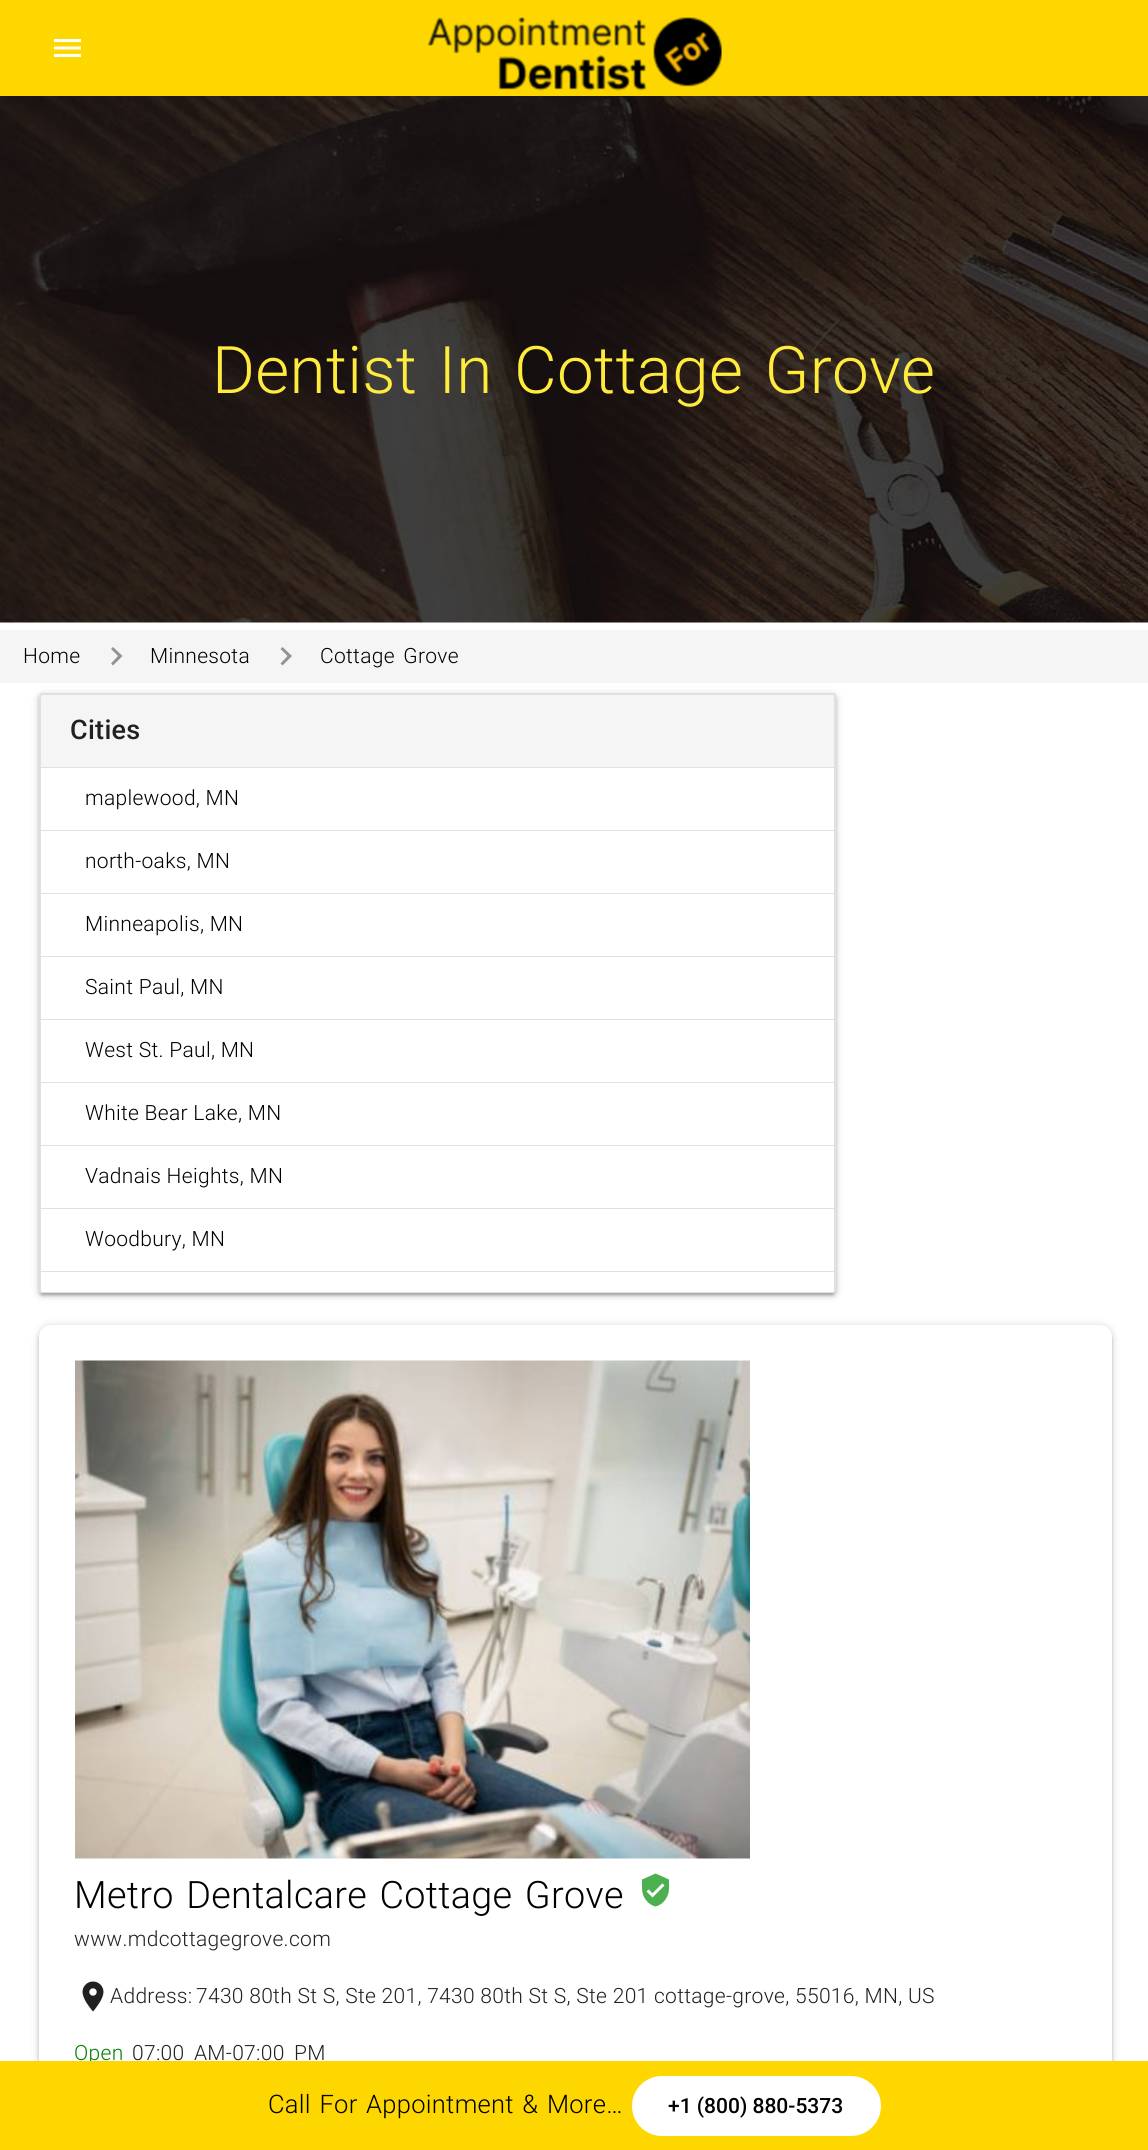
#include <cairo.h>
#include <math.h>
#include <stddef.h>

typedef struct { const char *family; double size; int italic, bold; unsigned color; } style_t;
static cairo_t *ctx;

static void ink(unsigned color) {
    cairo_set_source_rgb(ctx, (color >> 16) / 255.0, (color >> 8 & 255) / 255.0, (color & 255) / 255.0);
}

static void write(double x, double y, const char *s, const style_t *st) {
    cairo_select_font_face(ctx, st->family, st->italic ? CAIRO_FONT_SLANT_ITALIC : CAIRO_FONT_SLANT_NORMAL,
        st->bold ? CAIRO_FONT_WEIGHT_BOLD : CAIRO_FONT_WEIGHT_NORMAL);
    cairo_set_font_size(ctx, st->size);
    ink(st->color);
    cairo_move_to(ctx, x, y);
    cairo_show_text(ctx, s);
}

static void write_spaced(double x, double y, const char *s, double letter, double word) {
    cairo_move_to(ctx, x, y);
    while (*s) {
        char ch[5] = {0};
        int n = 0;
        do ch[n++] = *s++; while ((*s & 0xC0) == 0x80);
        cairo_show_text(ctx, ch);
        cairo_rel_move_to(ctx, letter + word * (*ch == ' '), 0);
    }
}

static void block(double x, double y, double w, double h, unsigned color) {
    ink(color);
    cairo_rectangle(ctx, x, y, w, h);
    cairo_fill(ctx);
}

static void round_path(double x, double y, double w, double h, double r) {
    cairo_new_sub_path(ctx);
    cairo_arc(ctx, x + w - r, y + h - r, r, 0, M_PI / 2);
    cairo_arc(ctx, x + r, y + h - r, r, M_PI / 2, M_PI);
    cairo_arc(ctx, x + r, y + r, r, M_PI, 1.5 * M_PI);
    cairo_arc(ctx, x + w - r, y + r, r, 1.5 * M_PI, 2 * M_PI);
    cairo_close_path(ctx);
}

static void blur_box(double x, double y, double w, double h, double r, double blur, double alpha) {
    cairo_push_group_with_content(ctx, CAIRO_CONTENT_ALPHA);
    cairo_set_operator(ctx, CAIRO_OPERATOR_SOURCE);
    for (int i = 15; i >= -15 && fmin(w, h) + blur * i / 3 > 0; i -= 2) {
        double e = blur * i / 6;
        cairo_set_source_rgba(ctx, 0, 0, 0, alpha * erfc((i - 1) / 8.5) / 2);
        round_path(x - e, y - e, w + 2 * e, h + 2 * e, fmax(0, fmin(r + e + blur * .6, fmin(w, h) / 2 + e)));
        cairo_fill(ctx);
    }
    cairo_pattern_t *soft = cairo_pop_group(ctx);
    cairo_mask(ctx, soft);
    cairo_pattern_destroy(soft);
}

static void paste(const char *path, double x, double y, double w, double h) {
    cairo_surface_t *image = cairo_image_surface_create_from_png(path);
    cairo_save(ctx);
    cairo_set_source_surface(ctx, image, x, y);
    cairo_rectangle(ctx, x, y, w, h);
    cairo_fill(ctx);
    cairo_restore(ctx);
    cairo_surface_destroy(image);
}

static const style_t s1 = {"Roboto Medium", 21, 0, 0, 0x000000};

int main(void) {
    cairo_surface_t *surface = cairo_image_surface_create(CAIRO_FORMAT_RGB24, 1148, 2150);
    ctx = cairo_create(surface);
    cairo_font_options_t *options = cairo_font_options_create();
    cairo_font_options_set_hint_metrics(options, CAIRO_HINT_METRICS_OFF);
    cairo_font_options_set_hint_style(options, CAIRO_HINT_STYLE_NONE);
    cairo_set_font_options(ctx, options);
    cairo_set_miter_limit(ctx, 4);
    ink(0xffffff);
    cairo_paint(ctx);
    block(0, 0, 1148, 96, 0xffd700);
    paste("pic1.png", 54, 39, 27, 18);
    paste("pic2.png", 427, 17, 295, 74);
    paste("pic3.png", 0, 96, 1148, 527);
    cairo_select_font_face(ctx, "Roboto Light", CAIRO_FONT_SLANT_NORMAL, CAIRO_FONT_WEIGHT_NORMAL);
    cairo_set_font_size(ctx, 65.6);
    ink(0xffeb3b);
    write_spaced(212, 393, "Dentist In Cottage Grove", 0.3, 5);
    block(0, 630, 1148, 53, 0xf5f5f5);
    cairo_set_font_size(ctx, 21);
    ink(0x000000);
    write_spaced(23, 663, "Home", 0.3, 0);
    ink(0x929292);
    cairo_new_path(ctx);
    cairo_move_to(ctx, 113, 647);
    cairo_line_to(ctx, 122.5, 656);
    cairo_line_to(ctx, 113, 665.5);
    cairo_line_to(ctx, 111, 663.5);
    cairo_line_to(ctx, 118, 656);
    cairo_line_to(ctx, 111, 649);
    cairo_close_path(ctx);
    cairo_fill(ctx);
    ink(0x000000);
    write_spaced(150, 663, "Minnesota", 0.3, 0);
    ink(0x929292);
    cairo_new_path(ctx);
    cairo_move_to(ctx, 282.5, 647);
    cairo_line_to(ctx, 292, 656);
    cairo_line_to(ctx, 282.5, 665.5);
    cairo_line_to(ctx, 280.5, 663.5);
    cairo_line_to(ctx, 287.5, 656);
    cairo_line_to(ctx, 280.5, 649);
    cairo_close_path(ctx);
    cairo_fill(ctx);
    ink(0x000000);
    write_spaced(320, 663, "Cottage Grove", 0.3, 3);
    ink(0x000000);
    blur_box(39, 695, 797, 600, 3, 4, 0.2);
    blur_box(42, 701, 791, 594, 0, 1, 0.12);
    blur_box(39, 696, 797, 600, 3, 1.5, 0.14);
    round_path(40, 694, 795, 598, 2);
    ink(0xe0e0e0);
    cairo_stroke(ctx);
    ink(0xf5f5f5);
    cairo_new_path(ctx);
    cairo_move_to(ctx, 42.5, 695);
    cairo_line_to(ctx, 832.5, 695);
    cairo_curve_to(ctx, 833.5, 695, 834, 695.5, 834, 696.5);
    cairo_line_to(ctx, 834, 768);
    cairo_line_to(ctx, 41, 768);
    cairo_line_to(ctx, 41, 696.5);
    cairo_curve_to(ctx, 41, 695.5, 41.5, 695, 42.5, 695);
    cairo_close_path(ctx);
    cairo_fill(ctx);
    block(41, 767, 793, 1, 0xe0e0e0);
    cairo_select_font_face(ctx, "Roboto Medium", CAIRO_FONT_SLANT_NORMAL, CAIRO_FONT_WEIGHT_NORMAL);
    cairo_set_font_size(ctx, 27);
    ink(0x212121);
    write_spaced(70, 739, "Cities", 0.3, 0);
    block(41, 768, 793, 62, 0xffffff);
    block(41, 830, 793, 1, 0xe0e0e0);
    cairo_select_font_face(ctx, "Roboto Light", CAIRO_FONT_SLANT_NORMAL, CAIRO_FONT_WEIGHT_NORMAL);
    cairo_set_font_size(ctx, 21);
    ink(0x000000);
    write_spaced(85, 805, "maplewood, MN", 0.3, 0);
    block(41, 831, 793, 62, 0xffffff);
    block(41, 893, 793, 1, 0xe0e0e0);
    ink(0x000000);
    write_spaced(85, 868, "north-oaks, MN", 0.3, 0);
    block(41, 894, 793, 62, 0xffffff);
    block(41, 956, 793, 1, 0xe0e0e0);
    ink(0x000000);
    write_spaced(85, 931, "Minneapolis, MN", 0.3, 0);
    block(41, 957, 793, 62, 0xffffff);
    block(41, 1019, 793, 1, 0xe0e0e0);
    ink(0x000000);
    write_spaced(85, 994, "Saint Paul, MN", 0.3, 0);
    block(41, 1020, 793, 62, 0xffffff);
    block(41, 1082, 793, 1, 0xe0e0e0);
    ink(0x000000);
    write_spaced(85, 1057, "West St. Paul, MN", 0.3, 0);
    block(41, 1083, 793, 62, 0xffffff);
    block(41, 1145, 793, 1, 0xe0e0e0);
    ink(0x000000);
    write_spaced(85, 1120, "White Bear Lake, MN", 0.3, 0);
    block(41, 1146, 793, 62, 0xffffff);
    block(41, 1208, 793, 1, 0xe0e0e0);
    ink(0x000000);
    write_spaced(85, 1183, "Vadnais Heights, MN", 0.3, 0);
    block(41, 1209, 793, 62, 0xffffff);
    block(41, 1271, 793, 1, 0xe0e0e0);
    ink(0x000000);
    write_spaced(85, 1246, "Woodbury, MN", 0.3, 0);
    ink(0xffffff);
    cairo_new_path(ctx);
    cairo_move_to(ctx, 41, 1272);
    cairo_line_to(ctx, 834, 1272);
    cairo_line_to(ctx, 834, 1290.5);
    cairo_curve_to(ctx, 834, 1291.5, 833.5, 1292, 832.5, 1292);
    cairo_line_to(ctx, 42.5, 1292);
    cairo_curve_to(ctx, 41.5, 1292, 41, 1291.5, 41, 1290.5);
    cairo_close_path(ctx);
    cairo_fill(ctx);
    ink(0x000000);
    blur_box(39, 1326, 1073, 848, 12, 4, 0.2);
    blur_box(39, 1328, 1073, 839, 12, 1.5, 0.14);
    ink(0xffffff);
    round_path(39, 1325, 1073, 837, 12);
    cairo_fill(ctx);
    paste("pic4.png", 75, 1360, 675, 499);
    cairo_set_font_size(ctx, 37.75);
    ink(0x000000);
    write_spaced(74, 1908, "Metro Dentalcare Cottage Grove", 0.3, 3);
    paste("pic5.png", 642, 1873, 27, 34);
    cairo_set_font_size(ctx, 21);
    ink(0x212121);
    write_spaced(74, 1946, "www.mdcottagegrove.com", 0.3, 0);
    paste("pic6.png", 82, 1981, 22, 31);
    write_spaced(110, 2003, "Address:", 0.3, 0);
    write_spaced(196, 2003, "7430 80th St S, Ste 201, 7430 80th St S, Ste 201 cottage-grove, 55016, MN, US", 0.3, 0);
    ink(0x008000);
    write_spaced(74, 2060, "Open", 0.3, 0);
    ink(0x212121);
    write_spaced(132, 2060, "07:00 AM-07:00 PM", 0.3, 4);
    block(0, 2061, 1148, 89, 0xffd700);
    cairo_set_font_size(ctx, 25.5);
    ink(0x000000);
    write_spaced(268, 2113, "Call For Appointment & More…", 0.3, 2);
    ink(0xffffff);
    round_path(632, 2076, 249, 60, 30);
    cairo_fill(ctx);
    write(668, 2113, "+1 (800) 880-5373", &s1);
    cairo_surface_write_to_png(surface, "screenshot.png");
    cairo_font_options_destroy(options);
    cairo_destroy(ctx);
    cairo_surface_destroy(surface);
    return 0;
}
